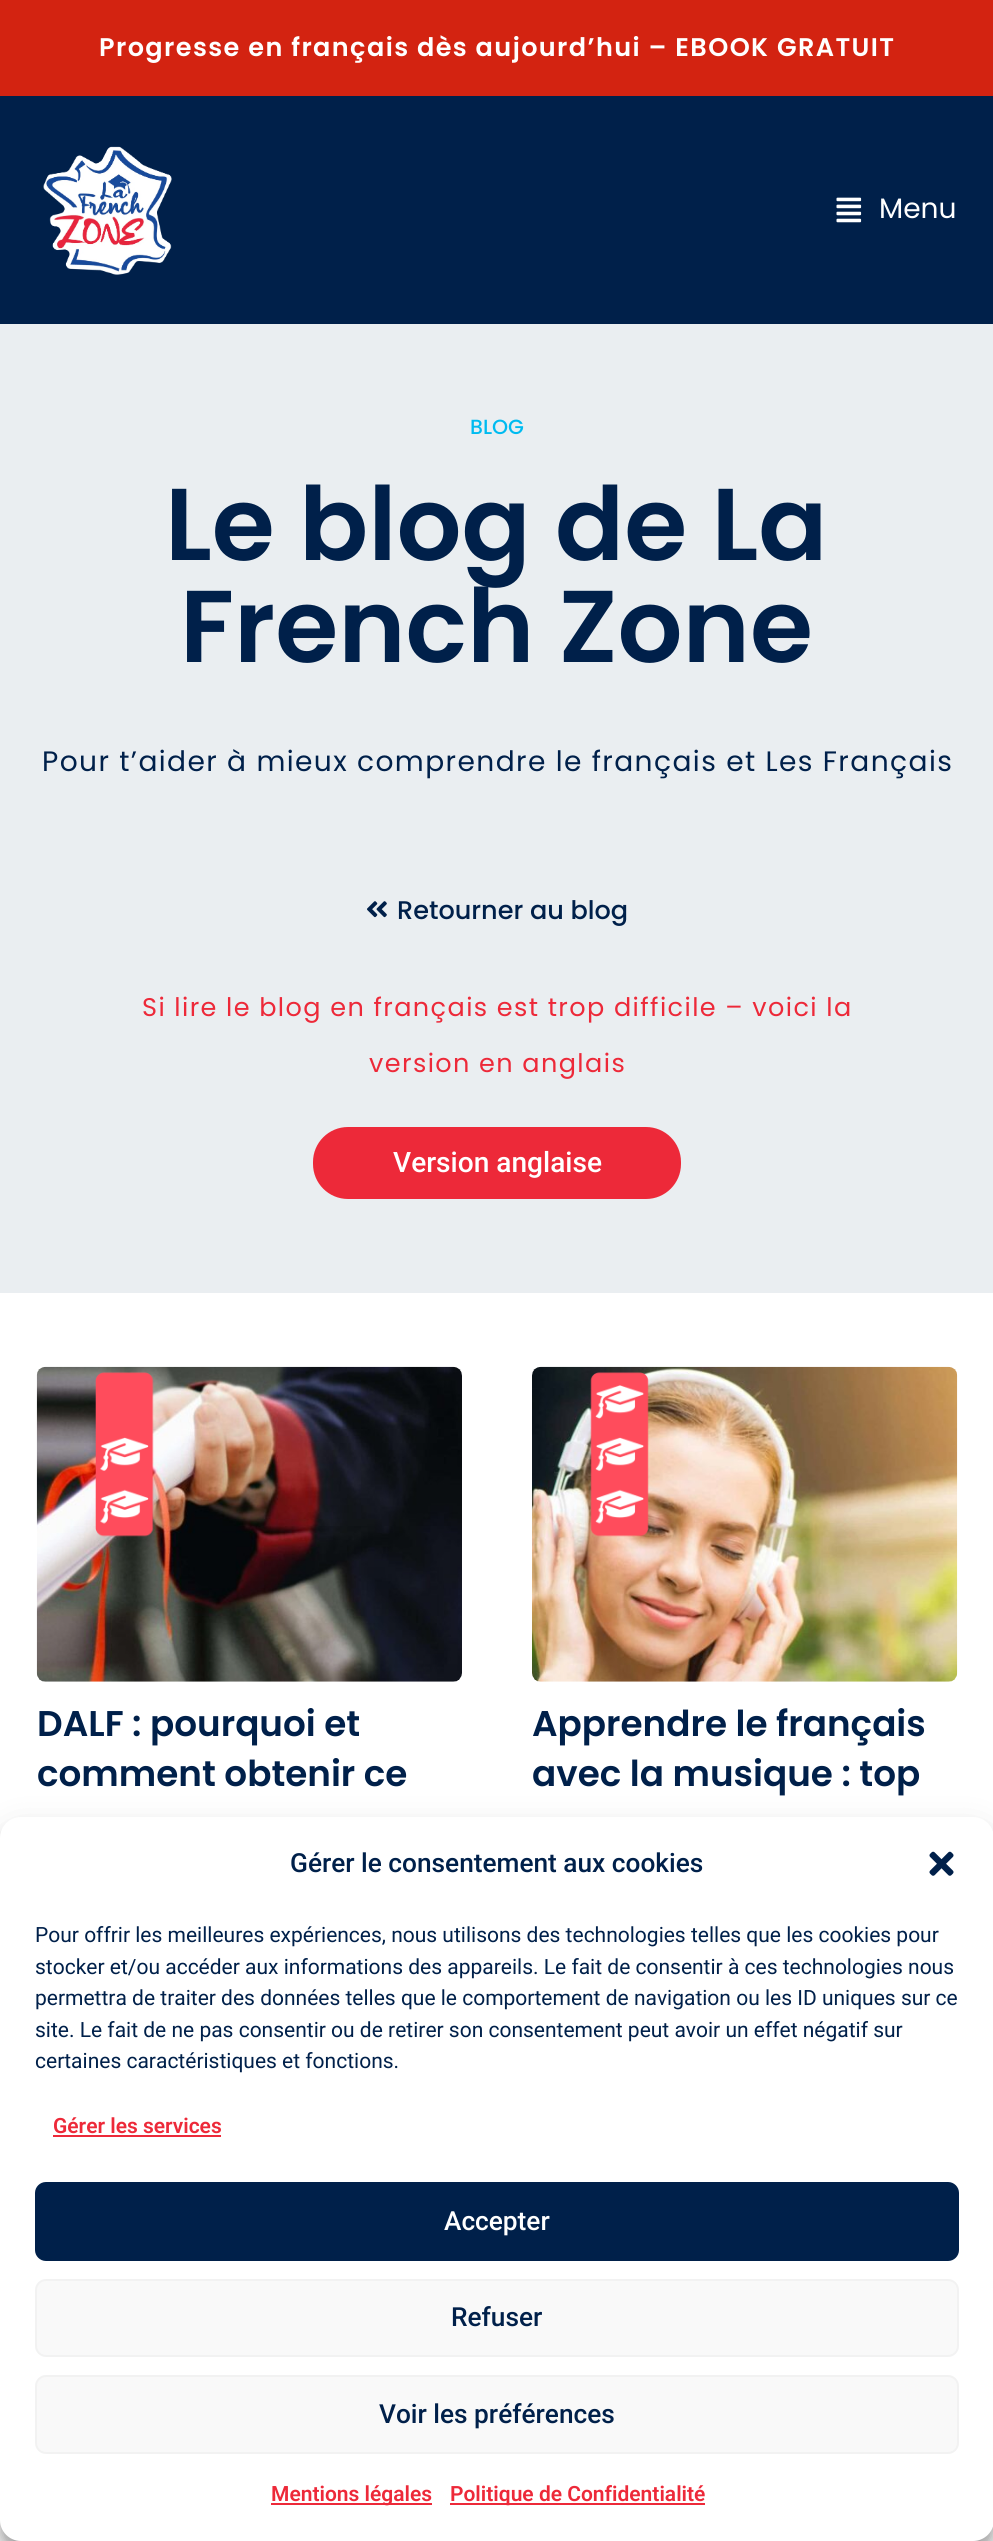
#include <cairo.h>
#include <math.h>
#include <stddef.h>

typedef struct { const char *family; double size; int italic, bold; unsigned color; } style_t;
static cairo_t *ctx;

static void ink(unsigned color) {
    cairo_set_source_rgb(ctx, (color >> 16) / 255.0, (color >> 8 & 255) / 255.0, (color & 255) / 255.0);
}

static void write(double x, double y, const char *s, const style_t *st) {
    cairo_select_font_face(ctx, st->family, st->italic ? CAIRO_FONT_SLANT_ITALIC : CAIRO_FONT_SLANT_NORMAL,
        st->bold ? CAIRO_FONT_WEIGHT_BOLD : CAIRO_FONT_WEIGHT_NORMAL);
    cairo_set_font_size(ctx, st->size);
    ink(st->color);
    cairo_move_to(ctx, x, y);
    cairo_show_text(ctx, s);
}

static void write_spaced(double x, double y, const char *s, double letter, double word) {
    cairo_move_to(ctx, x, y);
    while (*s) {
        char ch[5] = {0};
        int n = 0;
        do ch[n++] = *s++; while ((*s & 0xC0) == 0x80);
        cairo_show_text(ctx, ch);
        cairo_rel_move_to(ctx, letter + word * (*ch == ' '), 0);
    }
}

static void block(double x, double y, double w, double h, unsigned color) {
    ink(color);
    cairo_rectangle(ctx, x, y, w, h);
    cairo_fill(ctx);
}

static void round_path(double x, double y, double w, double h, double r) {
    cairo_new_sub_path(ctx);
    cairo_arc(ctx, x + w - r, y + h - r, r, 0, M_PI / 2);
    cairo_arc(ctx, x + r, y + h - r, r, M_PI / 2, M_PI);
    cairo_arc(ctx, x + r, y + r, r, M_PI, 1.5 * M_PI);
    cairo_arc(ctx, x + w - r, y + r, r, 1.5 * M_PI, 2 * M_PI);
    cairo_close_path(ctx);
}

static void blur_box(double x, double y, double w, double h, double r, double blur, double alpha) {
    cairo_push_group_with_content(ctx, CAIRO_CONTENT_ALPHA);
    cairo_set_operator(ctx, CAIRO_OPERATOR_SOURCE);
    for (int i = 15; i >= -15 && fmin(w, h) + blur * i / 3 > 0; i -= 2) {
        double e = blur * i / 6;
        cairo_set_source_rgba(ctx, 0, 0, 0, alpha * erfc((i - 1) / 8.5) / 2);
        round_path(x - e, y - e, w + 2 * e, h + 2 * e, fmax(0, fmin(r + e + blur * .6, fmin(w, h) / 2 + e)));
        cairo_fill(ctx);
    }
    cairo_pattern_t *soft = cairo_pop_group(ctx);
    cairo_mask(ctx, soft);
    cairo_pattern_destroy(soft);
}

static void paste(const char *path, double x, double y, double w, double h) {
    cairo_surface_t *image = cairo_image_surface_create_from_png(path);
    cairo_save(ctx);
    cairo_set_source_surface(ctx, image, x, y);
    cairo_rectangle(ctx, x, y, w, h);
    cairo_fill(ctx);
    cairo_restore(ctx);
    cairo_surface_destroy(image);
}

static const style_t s1 = {"Poppins", 28.1, 0, 0, 0xffffff};
static const style_t s2 = {"Poppins Medium", 20.5, 0, 0, 0x00bbf0};
static const style_t s3 = {"Poppins SemiBold", 102, 0, 0, 0x00204a};
static const style_t s4 = {"Poppins Medium", 25.55, 0, 0, 0x00204a};
static const style_t s5 = {"Roboto Medium", 28.1, 0, 0, 0xffffff};
static const style_t s6 = {"Poppins SemiBold", 35.75, 0, 0, 0x00204a};
static const style_t s7 = {"Roboto Medium", 26.25, 0, 0, 0x00204a};
static const style_t s8 = {"Roboto", 21, 0, 0, 0x00204a};
static const style_t s9 = {"Roboto SemiBold", 21, 0, 0, 0xed2939};
static const style_t s10 = {"Roboto Medium", 26.25, 0, 0, 0xffffff};

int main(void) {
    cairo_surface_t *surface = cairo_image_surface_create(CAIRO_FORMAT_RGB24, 993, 2541);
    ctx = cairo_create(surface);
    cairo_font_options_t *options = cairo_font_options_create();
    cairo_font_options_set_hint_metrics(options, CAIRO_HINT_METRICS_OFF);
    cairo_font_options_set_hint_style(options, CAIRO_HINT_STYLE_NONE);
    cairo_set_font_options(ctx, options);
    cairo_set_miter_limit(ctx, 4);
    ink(0xffffff);
    cairo_paint(ctx);
    block(0, 0, 993, 96, 0xd32311);
    cairo_select_font_face(ctx, "Poppins SemiBold", CAIRO_FONT_SLANT_NORMAL, CAIRO_FONT_WEIGHT_NORMAL);
    cairo_set_font_size(ctx, 25.55);
    ink(0xffffff);
    write_spaced(99, 56, "Progresse en français dès aujourd’hui – EBOOK GRATUIT", 1.4, 0);
    block(0, 96, 993, 228, 0x00204a);
    paste("pic1.png", 43, 146, 129, 129);
    paste("pic2.png", 836, 197, 26, 26);
    write(879, 218, "Menu", &s1);
    block(0, 324, 993, 969, 0xeaeef1);
    write(470, 434, "BLOG", &s2);
    write(165, 560, "Le blog de La", &s3);
    write(180, 662, "French Zone", &s3);
    cairo_select_font_face(ctx, "Poppins", CAIRO_FONT_SLANT_NORMAL, CAIRO_FONT_WEIGHT_NORMAL);
    cairo_set_font_size(ctx, 28.1);
    write_spaced(42, 771, "Pour t’aider à mieux comprendre le français et Les Français", 1.4, 0);
    paste("pic3.png", 367, 901, 20, 17);
    write(397, 919, "Retourner au blog", &s4);
    cairo_select_font_face(ctx, "Poppins", CAIRO_FONT_SLANT_NORMAL, CAIRO_FONT_WEIGHT_NORMAL);
    ink(0xed2939);
    write_spaced(142, 1016, "Si lire le blog en français est trop difficile – voici la", 1.4, 0);
    write_spaced(369, 1072, "version en anglais", 1.4, 0);
    round_path(315, 1129, 364, 68, 33);
    cairo_fill_preserve(ctx);
    cairo_set_line_width(ctx, 4);
    cairo_stroke(ctx);
    write(393, 1172, "Version anglaise", &s5);
    paste("pic4.png", 36, 1366, 426, 316);
    paste("pic5.png", 95, 1372, 59, 165);
    write(37, 1736, "DALF : pourquoi et", &s6);
    write(37, 1786, "comment obtenir ce", &s6);
    paste("pic6.png", 532, 1366, 426, 316);
    paste("pic7.png", 590, 1372, 59, 165);
    write(532, 1736, "Apprendre le français", &s6);
    write(532, 1786, "avec la musique : top", &s6);
    ink(0x000000);
    blur_box(0, 1827, 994, 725, 21, 5, 0.23);
    blur_box(0, 1834, 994, 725, 21, 17.5, 0.19);
    ink(0xffffff);
    round_path(0, 1817, 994, 724, 21);
    cairo_fill(ctx);
    write(290, 1872, "Gérer le consentement aux cookies", &s7);
    paste("pic8.png", 929, 1851, 25, 25);
    write(35, 1942, "Pour offrir les meilleures expériences, nous utilisons des technologies telles que les cookies pour", &s8);
    write(35, 1974, "stocker et/ou accéder aux informations des appareils. Le fait de consentir à ces technologies nous", &s8);
    write(35, 2005, "permettra de traiter des données telles que le comportement de navigation ou les ID uniques sur ce", &s8);
    write(35, 2037, "site. Le fait de ne pas consentir ou de retirer son consentement peut avoir un effet négatif sur", &s8);
    write(35, 2068, "certaines caractéristiques et fonctions.", &s8);
    write(53, 2133, "Gérer les services", &s9);
    block(53, 2135, 168, 2, 0xed2939);
    ink(0x00204a);
    round_path(36, 2183, 922, 77, 10);
    cairo_fill_preserve(ctx);
    cairo_set_line_width(ctx, 2);
    cairo_stroke(ctx);
    write(444, 2230, "Accepter", &s10);
    ink(0xf9f9f9);
    round_path(36, 2280, 922, 76, 10);
    cairo_fill_preserve(ctx);
    ink(0xf2f2f2);
    cairo_stroke(ctx);
    write(451, 2326, "Refuser", &s7);
    ink(0xf9f9f9);
    round_path(36, 2376, 922, 77, 10);
    cairo_fill_preserve(ctx);
    ink(0xf2f2f2);
    cairo_stroke(ctx);
    write(379, 2423, "Voir les préférences", &s7);
    block(271, 2503, 161, 2, 0xed2939);
    write(271, 2501, "Mentions légales", &s9);
    block(450, 2503, 255, 2, 0xed2939);
    write(450, 2501, "Politique de Confidentialité", &s9);
    cairo_surface_write_to_png(surface, "screenshot.png");
    cairo_font_options_destroy(options);
    cairo_destroy(ctx);
    cairo_surface_destroy(surface);
    return 0;
}
